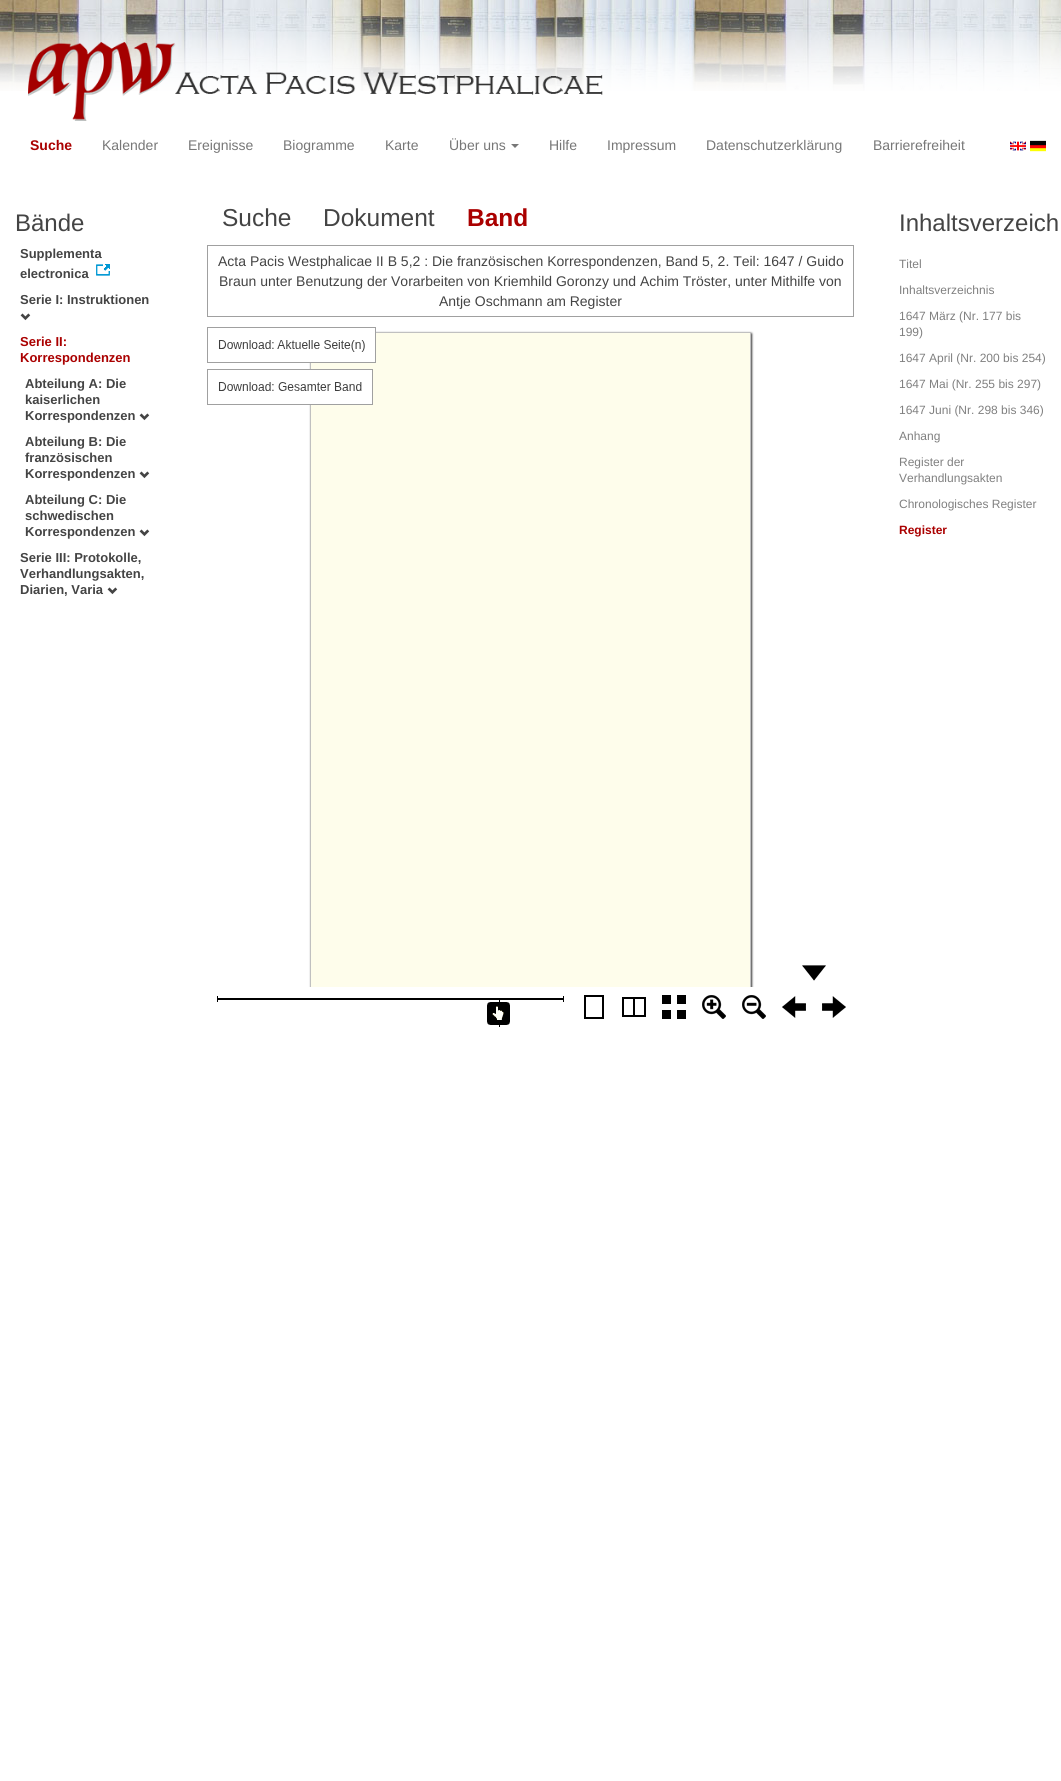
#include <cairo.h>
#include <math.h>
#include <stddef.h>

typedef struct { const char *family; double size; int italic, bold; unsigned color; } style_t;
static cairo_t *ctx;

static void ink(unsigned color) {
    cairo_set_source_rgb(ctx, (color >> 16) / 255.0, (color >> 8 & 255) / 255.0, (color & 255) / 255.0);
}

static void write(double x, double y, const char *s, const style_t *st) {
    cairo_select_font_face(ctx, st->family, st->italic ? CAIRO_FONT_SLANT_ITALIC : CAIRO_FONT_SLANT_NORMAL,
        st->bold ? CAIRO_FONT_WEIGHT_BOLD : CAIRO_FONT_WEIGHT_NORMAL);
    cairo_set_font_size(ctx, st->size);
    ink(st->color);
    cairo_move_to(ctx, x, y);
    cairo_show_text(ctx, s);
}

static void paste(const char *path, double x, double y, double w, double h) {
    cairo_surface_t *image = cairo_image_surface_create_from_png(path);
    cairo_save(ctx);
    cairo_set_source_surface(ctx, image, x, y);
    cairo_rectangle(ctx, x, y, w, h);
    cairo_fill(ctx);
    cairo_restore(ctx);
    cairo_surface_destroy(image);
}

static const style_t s1 = {"Liberation Sans", 14, 0, 1, 0xaa0000};
static const style_t s2 = {"Liberation Sans", 14, 0, 0, 0x777777};
static const style_t s3 = {"Liberation Sans", 24, 0, 0, 0x444444};
static const style_t s4 = {"Liberation Sans", 13, 0, 1, 0x444444};
static const style_t s5 = {"Liberation Sans", 13, 0, 1, 0xaa0000};
static const style_t s6 = {"Liberation Sans", 24.5, 0, 0, 0x444444};
static const style_t s7 = {"Liberation Sans", 24.5, 0, 1, 0xaa0000};
static const style_t s8 = {"Liberation Sans", 14, 0, 0, 0x444444};
static const style_t s9 = {"Liberation Sans", 12, 0, 0, 0x808080};
static const style_t s10 = {"Liberation Sans", 12, 0, 1, 0xaa0000};

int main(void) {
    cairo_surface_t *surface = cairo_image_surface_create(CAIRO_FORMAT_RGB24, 1061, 1781);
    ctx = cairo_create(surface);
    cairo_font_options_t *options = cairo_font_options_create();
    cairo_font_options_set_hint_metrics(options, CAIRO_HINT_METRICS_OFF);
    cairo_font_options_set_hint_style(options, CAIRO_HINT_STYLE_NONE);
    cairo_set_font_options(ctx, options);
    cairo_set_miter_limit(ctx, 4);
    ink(0xffffff);
    cairo_paint(ctx);
    paste("pic1.png", 0, 0, 1061, 91);
    paste("pic2.png", 28, 42, 575, 79);
    write(30, 150, "Suche", &s1);
    write(102, 150, "Kalender", &s2);
    write(188, 150, "Ereignisse", &s2);
    write(283, 150, "Biogramme", &s2);
    write(385, 150, "Karte", &s2);
    write(449, 150, "Über uns", &s2);
    cairo_new_path(ctx);
    cairo_move_to(ctx, 511, 144);
    cairo_line_to(ctx, 519, 144);
    cairo_line_to(ctx, 515, 148);
    cairo_close_path(ctx);
    cairo_fill(ctx);
    write(549, 150, "Hilfe", &s2);
    write(607, 150, "Impressum", &s2);
    write(706, 150, "Datenschutzerklärung", &s2);
    write(873, 150, "Barrierefreiheit", &s2);
    paste("pic3.png", 1010, 141, 16, 10);
    paste("pic4.png", 1030, 140, 16, 12);
    write(15, 231, "Bände", &s3);
    write(20, 258, "Supplementa", &s4);
    write(20, 278, "electronica", &s4);
    paste("pic5.png", 96, 264, 14, 12);
    write(20, 304, "Serie I: Instruktionen", &s4);
    paste("pic6.png", 20, 313, 11, 8);
    write(20, 346, "Serie II:", &s5);
    write(20, 362, "Korrespondenzen", &s5);
    write(25, 388, "Abteilung A: Die", &s4);
    write(25, 404, "kaiserlichen", &s4);
    write(25, 420, "Korrespondenzen", &s4);
    paste("pic6.png", 139, 413, 11, 8);
    write(25, 446, "Abteilung B: Die", &s4);
    write(25, 462, "französischen", &s4);
    write(25, 478, "Korrespondenzen", &s4);
    paste("pic6.png", 139, 471, 11, 8);
    write(25, 504, "Abteilung C: Die", &s4);
    write(25, 520, "schwedischen", &s4);
    write(25, 536, "Korrespondenzen", &s4);
    paste("pic6.png", 139, 529, 11, 8);
    write(20, 562, "Serie III: Protokolle,", &s4);
    write(20, 578, "Verhandlungsakten,", &s4);
    write(20, 594, "Diarien, Varia", &s4);
    paste("pic6.png", 107, 587, 11, 8);
    write(222, 226, "Suche", &s6);
    write(323, 226, "Dokument", &s6);
    write(467, 226, "Band", &s7);
    cairo_rectangle(ctx, 207.5, 245.5, 646, 71);
    ink(0xa0a0a0);
    cairo_set_line_width(ctx, 1);
    cairo_stroke(ctx);
    write(218, 266, "Acta Pacis Westphalicae II B 5,2 : Die französischen Korrespondenzen, Band 5, 2. Teil: 1647 / Guido", &s8);
    write(219, 286, "Braun unter Benutzung der Vorarbeiten von Kriemhild Goronzy und Achim Tröster, unter Mithilfe von", &s8);
    write(439, 306, "Antje Oschmann am Register", &s8);
    paste("pic7.png", 207, 327, 639, 700);
    write(899, 231, "Inhaltsverzeich", &s3);
    write(899, 268, "Titel", &s9);
    write(899, 294, "Inhaltsverzeichnis", &s9);
    write(899, 320, "1647 März (Nr. 177 bis", &s9);
    write(899, 336, "199)", &s9);
    write(899, 362, "1647 April (Nr. 200 bis 254)", &s9);
    write(899, 388, "1647 Mai (Nr. 255 bis 297)", &s9);
    write(899, 414, "1647 Juni (Nr. 298 bis 346)", &s9);
    write(899, 440, "Anhang", &s9);
    write(899, 466, "Register der", &s9);
    write(899, 482, "Verhandlungsakten", &s9);
    write(899, 508, "Chronologisches Register", &s9);
    write(899, 534, "Register", &s10);
    cairo_surface_write_to_png(surface, "screenshot.png");
    cairo_font_options_destroy(options);
    cairo_destroy(ctx);
    cairo_surface_destroy(surface);
    return 0;
}
